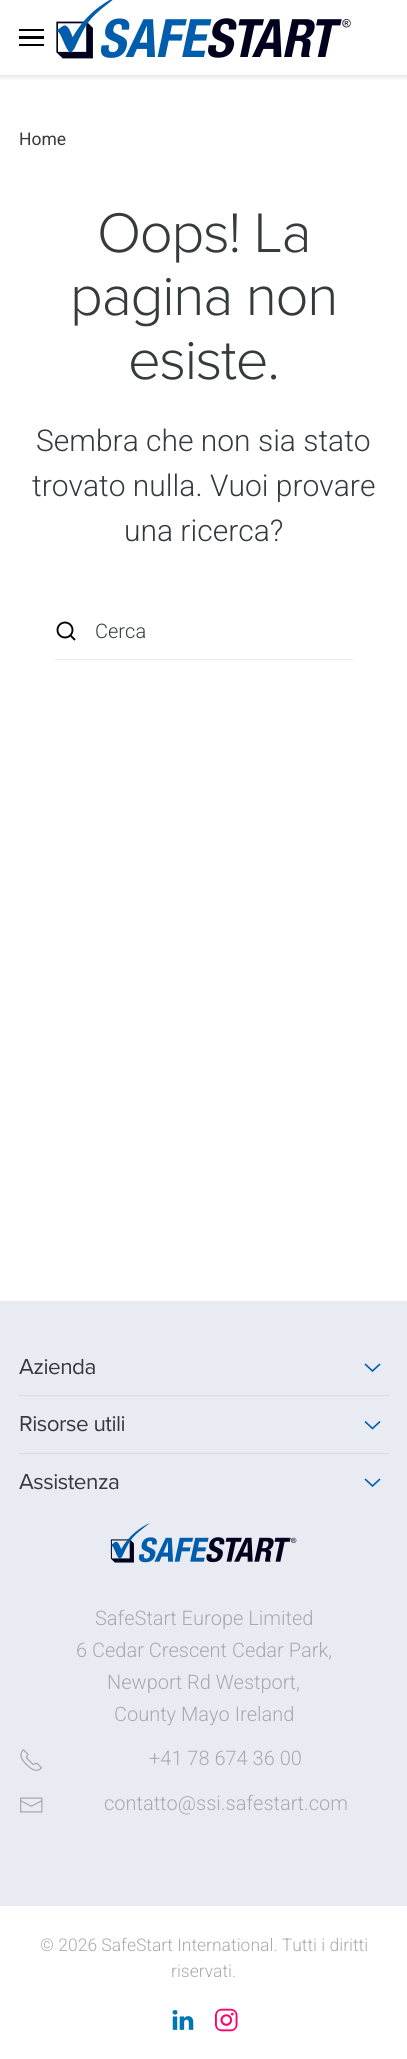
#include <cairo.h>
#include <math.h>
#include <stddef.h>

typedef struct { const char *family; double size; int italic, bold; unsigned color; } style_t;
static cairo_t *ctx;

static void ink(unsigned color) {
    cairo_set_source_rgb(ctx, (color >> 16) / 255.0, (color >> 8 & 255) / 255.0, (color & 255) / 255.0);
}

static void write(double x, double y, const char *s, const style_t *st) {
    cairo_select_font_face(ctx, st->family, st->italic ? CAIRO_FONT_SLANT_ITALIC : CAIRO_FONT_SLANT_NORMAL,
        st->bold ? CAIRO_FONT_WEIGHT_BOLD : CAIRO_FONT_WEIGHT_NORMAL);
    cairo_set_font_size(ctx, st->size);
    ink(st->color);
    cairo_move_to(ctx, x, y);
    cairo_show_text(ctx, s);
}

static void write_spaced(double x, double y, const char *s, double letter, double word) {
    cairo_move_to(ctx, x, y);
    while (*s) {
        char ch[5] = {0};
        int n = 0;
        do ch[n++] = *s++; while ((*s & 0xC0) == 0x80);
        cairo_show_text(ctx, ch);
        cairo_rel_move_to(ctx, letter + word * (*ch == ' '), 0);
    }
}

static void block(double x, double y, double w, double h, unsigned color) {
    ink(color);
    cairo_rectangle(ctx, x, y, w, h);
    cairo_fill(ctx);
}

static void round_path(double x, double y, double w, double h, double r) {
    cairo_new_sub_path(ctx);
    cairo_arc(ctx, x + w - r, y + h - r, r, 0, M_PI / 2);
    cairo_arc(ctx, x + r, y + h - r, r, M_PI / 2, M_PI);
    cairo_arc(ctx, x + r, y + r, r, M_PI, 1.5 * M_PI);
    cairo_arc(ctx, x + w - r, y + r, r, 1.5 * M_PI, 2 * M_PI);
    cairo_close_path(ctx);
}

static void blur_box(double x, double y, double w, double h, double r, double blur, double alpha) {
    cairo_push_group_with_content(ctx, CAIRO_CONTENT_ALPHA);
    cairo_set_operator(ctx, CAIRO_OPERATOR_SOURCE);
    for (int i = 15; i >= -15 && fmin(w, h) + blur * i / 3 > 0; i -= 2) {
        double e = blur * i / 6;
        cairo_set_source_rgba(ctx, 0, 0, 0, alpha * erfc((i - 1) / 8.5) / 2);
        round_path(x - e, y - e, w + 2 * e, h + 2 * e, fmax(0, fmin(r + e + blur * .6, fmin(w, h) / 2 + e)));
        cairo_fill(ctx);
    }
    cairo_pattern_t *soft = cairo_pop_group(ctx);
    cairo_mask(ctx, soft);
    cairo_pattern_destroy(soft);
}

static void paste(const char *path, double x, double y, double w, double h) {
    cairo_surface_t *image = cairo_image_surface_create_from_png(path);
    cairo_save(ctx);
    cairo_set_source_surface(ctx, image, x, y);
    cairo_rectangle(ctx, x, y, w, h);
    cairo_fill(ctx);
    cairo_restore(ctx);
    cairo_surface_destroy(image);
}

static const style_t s1 = {"Roboto", 17.5, 0, 0, 0x373a3c};
static const style_t s2 = {"Roboto Light", 30, 0, 0, 0x373a3c};
static const style_t s3 = {"Roboto Light", 20, 0, 0, 0x373a3c};
static const style_t s4 = {"Roboto Light", 20, 0, 0, 0xaaaaaa};
static const style_t s5 = {"Roboto Light", 17.5, 0, 0, 0xaaaaaa};

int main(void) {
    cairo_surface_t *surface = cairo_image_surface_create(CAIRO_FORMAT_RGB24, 407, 2059);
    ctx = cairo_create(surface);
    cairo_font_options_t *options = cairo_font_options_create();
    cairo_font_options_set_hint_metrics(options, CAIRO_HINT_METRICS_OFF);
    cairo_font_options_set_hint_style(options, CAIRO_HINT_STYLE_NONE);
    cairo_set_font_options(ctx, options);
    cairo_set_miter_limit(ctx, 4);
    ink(0xffffff);
    cairo_paint(ctx);
    cairo_save(ctx);
    cairo_rectangle(ctx, 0, 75, 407, 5);
    cairo_clip(ctx);
    ink(0x000000);
    blur_box(0, 0, 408, 75, 0, 4, 0.2);
    cairo_restore(ctx);
    block(19, 29, 25, 2, 0x000000);
    block(19, 36, 25, 3, 0x000000);
    block(19, 44, 25, 2, 0x000000);
    paste("pic1.png", 56, 0, 295, 59);
    write(19, 145, "Home", &s1);
    cairo_select_font_face(ctx, "Proxima Nova Light", CAIRO_FONT_SLANT_NORMAL, CAIRO_FONT_WEIGHT_NORMAL);
    cairo_set_font_size(ctx, 57.75);
    write_spaced(97, 252, "Oops! La", -1.25, 0);
    write_spaced(70, 315, "pagina non", -1.25, 0);
    write_spaced(128, 379, "esiste.", -1.25, 0);
    write(36, 451, "Sembra che non sia stato", &s2);
    write(32, 496, "trovato nulla. Vuoi provare", &s2);
    write(124, 541, "una ricerca?", &s2);
    cairo_new_path(ctx);
    cairo_arc(ctx, 65, 630, 7.5, 0, 2 * M_PI);
    ink(0x000000);
    cairo_set_line_width(ctx, 1.9);
    cairo_stroke(ctx);
    cairo_new_path(ctx);
    cairo_move_to(ctx, 70, 635);
    cairo_line_to(ctx, 75, 640);
    cairo_close_path(ctx);
    cairo_stroke(ctx);
    block(54, 659, 300, 1, 0xededed);
    write(95, 638, "Cerca", &s3);
    block(0, 1301, 407, 605, 0xe8ebf2);
    cairo_select_font_face(ctx, "Proxima Nova", CAIRO_FONT_SLANT_NORMAL, CAIRO_FONT_WEIGHT_NORMAL);
    cairo_set_font_size(ctx, 22.5);
    ink(0x373a3c);
    write_spaced(19, 1374, "Azienda", -0.5, 0);
    cairo_new_path(ctx);
    cairo_move_to(ctx, 365, 1364);
    cairo_line_to(ctx, 372.5, 1371);
    cairo_line_to(ctx, 380, 1364);
    ink(0x005dab);
    cairo_set_line_width(ctx, 1.6);
    cairo_stroke(ctx);
    block(19, 1395, 370, 1, 0xd8dbe1);
    ink(0x373a3c);
    write_spaced(19, 1431, "Risorse utili", -0.5, 0);
    cairo_new_path(ctx);
    cairo_move_to(ctx, 365, 1421.5);
    cairo_line_to(ctx, 372.5, 1428.5);
    cairo_line_to(ctx, 380, 1421.5);
    ink(0x005dab);
    cairo_stroke(ctx);
    block(19, 1453, 370, 1, 0xd8dbe1);
    ink(0x373a3c);
    write_spaced(19, 1489, "Assistenza", -0.5, 0);
    cairo_new_path(ctx);
    cairo_move_to(ctx, 365, 1479);
    cairo_line_to(ctx, 372.5, 1486);
    cairo_line_to(ctx, 380, 1479);
    ink(0x005dab);
    cairo_stroke(ctx);
    paste("pic2.png", 110, 1523, 187, 40);
    write(95, 1625, "SafeStart Europe Limited", &s4);
    write(76, 1657, "6 Cedar Crescent Cedar Park,", &s4);
    write(107, 1689, "Newport Rd Westport,", &s4);
    write(114, 1721, "County Mayo Ireland", &s4);
    paste("pic3.png", 20, 1749, 23, 22);
    write(149, 1765, "+41 78 674 36 00", &s4);
    paste("pic4.png", 20, 1797, 23, 16);
    write(104, 1810, "contatto@ssi.safestart.com", &s4);
    write(40, 1951, "© 2026 SafeStart International. Tutti i diritti", &s5);
    write(171, 1977, "riservati.", &s5);
    paste("pic5.png", 172, 2010, 22, 20);
    paste("pic6.png", 215, 2008, 23, 24);
    cairo_surface_write_to_png(surface, "screenshot.png");
    cairo_font_options_destroy(options);
    cairo_destroy(ctx);
    cairo_surface_destroy(surface);
    return 0;
}
